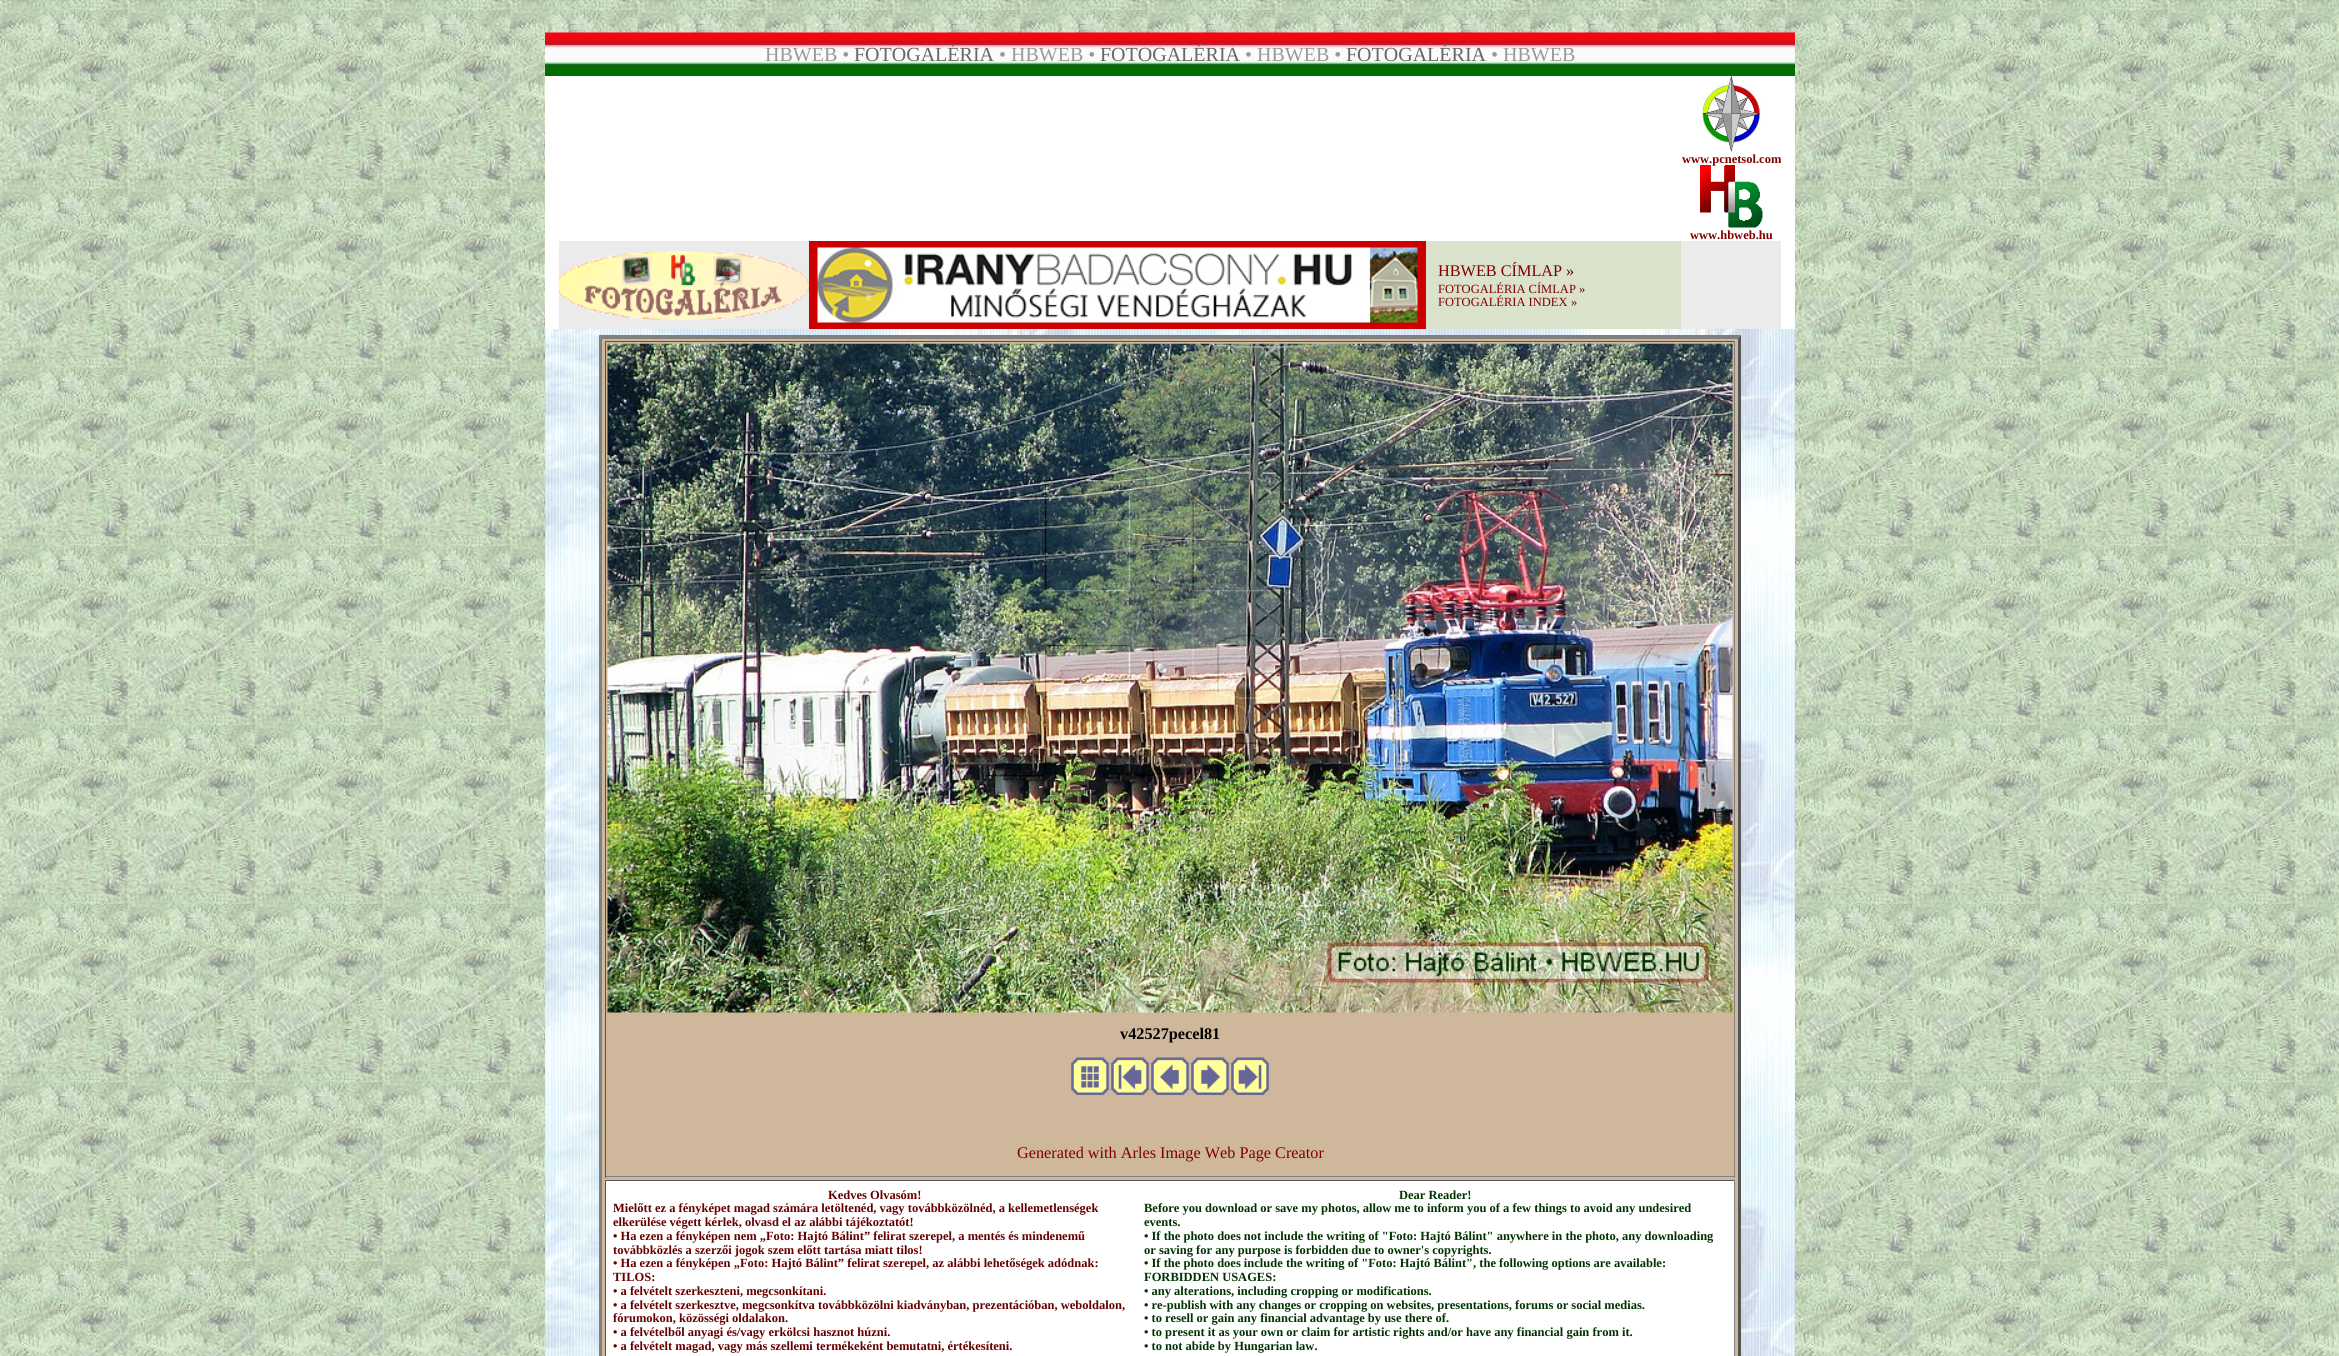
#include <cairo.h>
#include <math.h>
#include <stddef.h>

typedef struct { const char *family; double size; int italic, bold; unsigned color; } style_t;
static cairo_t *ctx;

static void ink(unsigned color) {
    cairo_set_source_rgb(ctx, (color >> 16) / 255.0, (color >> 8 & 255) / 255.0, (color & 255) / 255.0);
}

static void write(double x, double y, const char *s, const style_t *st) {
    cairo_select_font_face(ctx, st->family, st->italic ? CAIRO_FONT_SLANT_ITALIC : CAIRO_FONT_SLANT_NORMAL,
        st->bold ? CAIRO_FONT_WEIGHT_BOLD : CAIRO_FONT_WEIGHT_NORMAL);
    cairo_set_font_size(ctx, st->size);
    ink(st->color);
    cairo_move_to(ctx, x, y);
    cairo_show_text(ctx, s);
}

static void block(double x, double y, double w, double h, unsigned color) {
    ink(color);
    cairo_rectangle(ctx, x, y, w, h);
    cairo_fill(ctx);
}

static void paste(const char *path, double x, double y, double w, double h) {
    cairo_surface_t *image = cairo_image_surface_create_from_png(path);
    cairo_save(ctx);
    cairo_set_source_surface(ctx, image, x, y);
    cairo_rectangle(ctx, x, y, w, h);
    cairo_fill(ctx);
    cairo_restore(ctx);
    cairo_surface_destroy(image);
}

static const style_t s1 = {"Liberation Serif", 20, 0, 0, 0x999999};
static const style_t s2 = {"Liberation Serif", 20, 0, 0, 0x666666};
static const style_t s3 = {"Liberation Serif", 12.5, 0, 1, 0x800000};
static const style_t s4 = {"Liberation Serif", 16.25, 0, 0, 0x800000};
static const style_t s5 = {"Liberation Serif", 16.25, 0, 0, 0x660000};
static const style_t s6 = {"Liberation Serif", 12.5, 0, 0, 0x800000};
static const style_t s7 = {"Liberation Serif", 12.5, 0, 0, 0x660000};
static const style_t s8 = {"Liberation Serif", 16.25, 0, 1, 0x000000};
static const style_t s9 = {"Liberation Serif", 12.5, 0, 1, 0x660000};
static const style_t s10 = {"Liberation Serif", 12.5, 0, 1, 0x003300};

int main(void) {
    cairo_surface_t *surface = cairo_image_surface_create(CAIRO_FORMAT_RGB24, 2339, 1356);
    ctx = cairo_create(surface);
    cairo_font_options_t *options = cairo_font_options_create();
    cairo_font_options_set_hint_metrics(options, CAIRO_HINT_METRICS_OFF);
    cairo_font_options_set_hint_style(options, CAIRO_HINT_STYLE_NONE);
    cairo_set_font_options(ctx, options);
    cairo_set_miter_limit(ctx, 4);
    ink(0xffffff);
    cairo_paint(ctx);
    paste("pic1.png", 0, 0, 2339, 1356);
    paste("pic2.png", 545, 32, 1250, 44);
    write(765, 61, "HBWEB •", &s1);
    write(854, 61, "FOTOGALÉRIA", &s2);
    write(999, 61, "• HBWEB •", &s1);
    write(1100, 61, "FOTOGALÉRIA", &s2);
    write(1245, 61, "• HBWEB •", &s1);
    write(1346, 61, "FOTOGALÉRIA", &s2);
    write(1491, 61, "• HBWEB", &s1);
    paste("pic3.png", 545, 329, 1250, 1027);
    block(545, 76, 1250, 253, 0xffffff);
    paste("pic4.png", 1702, 76, 59, 76);
    write(1682, 163, "www.pcnetsol.com", &s3);
    paste("pic5.png", 1700, 165, 63, 63);
    write(1690, 239, "www.hbweb.hu", &s3);
    block(559, 241, 250, 88, 0xebebeb);
    paste("pic6.png", 558, 251, 251, 69);
    block(1426, 241, 255, 88, 0xdae2cb);
    block(809, 241, 617, 88, 0xcc0000);
    paste("pic7.png", 817, 247, 601, 76);
    write(1438, 276, "HBWEB CÍMLAP", &s4);
    write(1566, 276, "»", &s5);
    write(1438, 293, "FOTOGALÉRIA CÍMLAP", &s6);
    write(1579, 293, "»", &s7);
    write(1438, 306, "FOTOGALÉRIA INDEX", &s6);
    write(1571, 306, "»", &s7);
    block(1681, 241, 100, 88, 0xebebeb);
    paste("pic8.png", 1163, 330, 4, 4);
    block(1169, 331, 1, 1, 0xe3f1f9);
    paste("pic9.png", 1173, 330, 4, 4);
    block(599, 335, 1142, 1021, 0xcfb79c);
    ink(0x808080);
    cairo_new_path(ctx);
    cairo_move_to(ctx, 599, 335);
    cairo_line_to(ctx, 1741, 335);
    cairo_line_to(ctx, 1738, 339);
    cairo_line_to(ctx, 602, 339);
    cairo_close_path(ctx);
    cairo_fill(ctx);
    ink(0x555555);
    cairo_new_path(ctx);
    cairo_move_to(ctx, 1741, 335);
    cairo_line_to(ctx, 1741, 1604);
    cairo_line_to(ctx, 1738, 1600);
    cairo_line_to(ctx, 1738, 339);
    cairo_close_path(ctx);
    cairo_fill(ctx);
    ink(0x808080);
    cairo_new_path(ctx);
    cairo_move_to(ctx, 599, 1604);
    cairo_line_to(ctx, 599, 335);
    cairo_line_to(ctx, 602, 339);
    cairo_line_to(ctx, 602, 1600);
    cairo_close_path(ctx);
    cairo_fill(ctx);
    block(605, 341, 1130, 1, 0x555555);
    block(1734, 341, 1, 837, 0x808080);
    block(605, 1176, 1130, 1, 0x808080);
    block(605, 341, 1, 837, 0x555555);
    paste("pic10.png", 607, 343, 1126, 670);
    write(1120, 1039, "v42527pecel81", &s8);
    paste("pic11.png", 1071, 1057, 38, 38);
    paste("pic12.png", 1111, 1057, 38, 38);
    paste("pic13.png", 1151, 1057, 38, 38);
    paste("pic14.png", 1191, 1057, 38, 38);
    paste("pic15.png", 1231, 1057, 38, 38);
    write(1017, 1158, "Generated with Arles Image Web Page Creator", &s4);
    block(606, 1181, 1128, 175, 0xffffff);
    block(605, 1180, 1130, 1, 0x555555);
    block(1734, 1180, 1, 176, 0x808080);
    block(605, 1180, 1, 176, 0x555555);
    write(828, 1199, "Kedves Olvasóm!", &s9);
    write(613, 1212, "Mielőtt ez a fényképet magad számára letöltenéd, vagy továbbközölnéd, a kellemetlenségek", &s9);
    write(613, 1226, "elkerülése végett kérlek, olvasd el az alábbi tájékoztatót!", &s9);
    write(613, 1240, "• Ha ezen a fényképen nem „Foto: Hajtó Bálint” felirat szerepel, a mentés és mindenemű", &s9);
    write(613, 1254, "továbbközlés a szerzői jogok szem előtt tartása miatt tilos!", &s9);
    write(613, 1267, "• Ha ezen a fényképen „Foto: Hajtó Bálint” felirat szerepel, az alábbi lehetőségek adódnak:", &s9);
    write(613, 1281, "TILOS:", &s9);
    write(613, 1295, "• a felvételt szerkeszteni, megcsonkítani.", &s9);
    write(613, 1309, "• a felvételt szerkesztve, megcsonkítva továbbközölni kiadványban, prezentációban, weboldalon,", &s9);
    write(613, 1322, "fórumokon, közösségi oldalakon.", &s9);
    write(613, 1336, "• a felvételből anyagi és/vagy erkölcsi hasznot húzni.", &s9);
    write(613, 1350, "• a felvételt magad, vagy más szellemi termékeként bemutatni, értékesíteni.", &s9);
    write(1399, 1199, "Dear Reader!", &s10);
    write(1144, 1212, "Before you download or save my photos, allow me to inform you of a few things to avoid any undesired", &s10);
    write(1144, 1226, "events.", &s10);
    write(1144, 1240, "• If the photo does not include the writing of \"Foto: Hajtó Bálint\" anywhere in the photo, any downloading", &s10);
    write(1144, 1254, "or saving for any purpose is forbidden due to owner's copyrights.", &s10);
    write(1144, 1267, "• If the photo does include the writing of \"Foto: Hajtó Bálint\", the following options are available:", &s10);
    write(1144, 1281, "FORBIDDEN USAGES:", &s10);
    write(1144, 1295, "• any alterations, including cropping or modifications.", &s10);
    write(1144, 1309, "• re-publish with any changes or cropping on websites, presentations, forums or social medias.", &s10);
    write(1144, 1322, "• to resell or gain any financial advantage by use there of.", &s10);
    write(1144, 1336, "• to present it as your own or claim for artistic rights and/or have any financial gain from it.", &s10);
    write(1144, 1350, "• to not abide by Hungarian law.", &s10);
    cairo_surface_write_to_png(surface, "screenshot.png");
    cairo_font_options_destroy(options);
    cairo_destroy(ctx);
    cairo_surface_destroy(surface);
    return 0;
}
